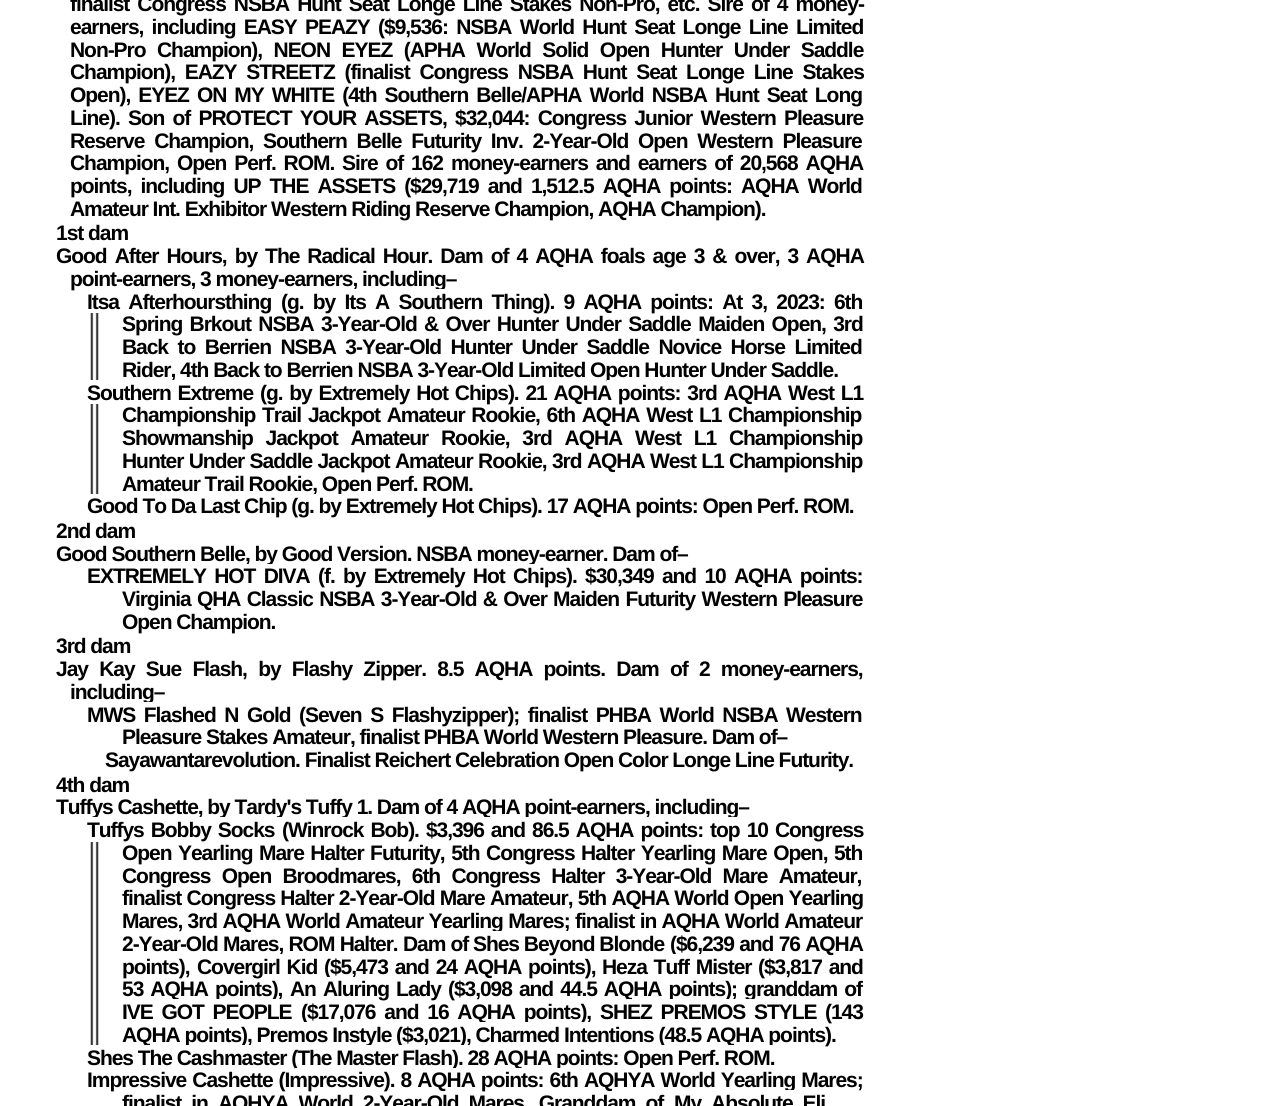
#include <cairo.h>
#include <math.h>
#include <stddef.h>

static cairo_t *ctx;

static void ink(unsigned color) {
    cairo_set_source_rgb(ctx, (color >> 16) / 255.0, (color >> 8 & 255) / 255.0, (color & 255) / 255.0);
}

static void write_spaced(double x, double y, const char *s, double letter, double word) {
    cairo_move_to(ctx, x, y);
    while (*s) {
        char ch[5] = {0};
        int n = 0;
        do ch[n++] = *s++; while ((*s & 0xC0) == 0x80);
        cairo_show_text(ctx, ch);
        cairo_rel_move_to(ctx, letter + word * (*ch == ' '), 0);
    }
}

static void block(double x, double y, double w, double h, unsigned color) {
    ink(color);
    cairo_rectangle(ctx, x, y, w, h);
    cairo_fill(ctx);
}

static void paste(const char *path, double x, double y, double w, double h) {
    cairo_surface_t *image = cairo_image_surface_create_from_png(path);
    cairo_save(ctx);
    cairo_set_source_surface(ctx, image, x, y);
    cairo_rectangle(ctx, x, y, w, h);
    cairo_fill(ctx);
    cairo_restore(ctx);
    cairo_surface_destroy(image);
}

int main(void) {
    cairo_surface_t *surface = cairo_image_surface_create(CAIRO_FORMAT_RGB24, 1278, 1106);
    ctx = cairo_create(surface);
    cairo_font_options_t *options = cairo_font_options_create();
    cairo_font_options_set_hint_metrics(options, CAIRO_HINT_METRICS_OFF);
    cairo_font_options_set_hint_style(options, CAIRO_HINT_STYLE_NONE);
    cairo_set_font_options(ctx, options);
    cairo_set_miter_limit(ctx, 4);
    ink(0xffffff);
    cairo_paint(ctx);
    cairo_select_font_face(ctx, "Liberation Sans", CAIRO_FONT_SLANT_NORMAL, CAIRO_FONT_WEIGHT_BOLD);
    cairo_set_font_size(ctx, 21);
    ink(0x000000);
    write_spaced(70, 11, "finalist Congress NSBA Hunt Seat Longe Line Stakes Non-Pro, etc. Sire of 4 money-", -1.05, 3.25);
    write_spaced(70, 34, "earners, including EASY PEAZY ($9,536: NSBA World Hunt Seat Longe Line Limited", -1.05, 3.5);
    write_spaced(70, 57, "Non-Pro Champion), NEON EYEZ (APHA World Solid Open Hunter Under Saddle", -1.05, 6.75);
    write_spaced(70, 79, "Champion), EAZY STREETZ (finalist Congress NSBA Hunt Seat Longe Line Stakes", -1.05, 5);
    write_spaced(70, 102, "Open), EYEZ ON MY WHITE (4th Southern Belle/APHA World NSBA Hunt Seat Long", -1.05, 3.25);
    write_spaced(70, 125, "Line). Son of PROTECT YOUR ASSETS, $32,044: Congress Junior Western Pleasure", -1.05, 3.4);
    write_spaced(70, 148, "Reserve Champion, Southern Belle Futurity Inv. 2-Year-Old Open Western Pleasure", -1.05, 5);
    write_spaced(70, 170, "Champion, Open Perf. ROM. Sire of 162 money-earners and earners of 20,568 AQHA", -1.05, 3.1);
    write_spaced(70, 193, "points, including UP THE ASSETS ($29,719 and 1,512.5 AQHA points: AQHA World", -1.05, 4.25);
    write_spaced(70, 216, "Amateur Int. Exhibitor Western Riding Reserve Champion, AQHA Champion).", -1.05, 0);
    write_spaced(56, 240, "1st dam", -1.05, 0);
    write_spaced(56, 263, "Good After Hours, by The Radical Hour. Dam of 4 AQHA foals age 3 & over, 3 AQHA", -1.05, 3.25);
    write_spaced(70, 286, "point-earners, 3 money-earners, including–", -1.05, 0);
    paste("pic1.png", 90, 313, 9, 67);
    write_spaced(87, 309, "Itsa Afterhoursthing", -1.05, 4.5);
    block(191, 289, 254, 2, 0xffffff);
    ink(0x000000);
    write_spaced(281, 309, "(g. by Its A Southern Thing). 9 AQHA points: At 3, 2023: 6th", -1.05, 4.5);
    write_spaced(122, 331, "Spring Brkout NSBA 3-Year-Old & Over Hunter Under Saddle Maiden Open, 3rd", -1.05, 2.6);
    write_spaced(122, 354, "Back to Berrien NSBA 3-Year-Old Hunter Under Saddle Novice Horse Limited", -1.05, 4.75);
    write_spaced(122, 377, "Rider, 4th Back to Berrien NSBA 3-Year-Old Limited Open Hunter Under Saddle.", -1.05, 0);
    paste("pic2.png", 90, 404, 9, 90);
    write_spaced(87, 400, "Southern Extreme", -1.05, 2);
    block(172, 380, 3, 1, 0xffffff);
    ink(0x000000);
    write_spaced(260, 400, "(g. by Extremely Hot Chips). 21 AQHA points: 3rd AQHA West L1", -1.05, 2);
    block(607, 380, 4, 2, 0xffffff);
    ink(0x000000);
    write_spaced(122, 422, "Championship Trail Jackpot Amateur Rookie, 6th AQHA West L1 Championship", -1.05, 2);
    write_spaced(122, 445, "Showmanship Jackpot Amateur Rookie, 3rd AQHA West L1 Championship", -1.05, 8);
    write_spaced(122, 468, "Hunter Under Saddle Jackpot Amateur Rookie, 3rd AQHA West L1 Championship", -1.05, 0.6);
    write_spaced(122, 491, "Amateur Trail Rookie, Open Perf. ROM.", -1.05, 0);
    write_spaced(87, 513, "Good To Da Last Chip (g. by Extremely Hot Chips). 17 AQHA points: Open Perf. ROM.", -1.05, 0);
    block(314, 494, 28, 2, 0xffffff);
    ink(0x000000);
    write_spaced(56, 538, "2nd dam", -1.05, 0);
    write_spaced(56, 561, "Good Southern Belle, by Good Version. NSBA money-earner. Dam of–", -1.05, 0);
    write_spaced(87, 583, "EXTREMELY HOT DIVA", -1.05, 3.5);
    block(246, 564, 26, 2, 0xffffff);
    ink(0x000000);
    write_spaced(318, 583, "(f. by Extremely Hot Chips). $30,349 and 10 AQHA points:", -1.05, 3.5);
    block(529, 564, 5, 2, 0xffffff);
    ink(0x000000);
    write_spaced(122, 606, "Virginia QHA Classic NSBA 3-Year-Old & Over Maiden Futurity Western Pleasure", -1.05, 1.5);
    write_spaced(122, 629, "Open Champion.", -1.05, 0);
    write_spaced(56, 653, "3rd dam", -1.05, 0);
    write_spaced(56, 676, "Jay Kay Sue Flash, by Flashy Zipper. 8.5 AQHA points. Dam of 2 money-earners,", -1.05, 6.5);
    write_spaced(70, 699, "including–", -1.05, 0);
    write_spaced(87, 722, "MWS Flashed N Gold (Seven S Flashyzipper); finalist PHBA World NSBA Western", -1.05, 3.75);
    block(144, 702, 9, 2, 0xffffff);
    ink(0x000000);
    write_spaced(122, 744, "Pleasure Stakes Amateur, finalist PHBA World Western Pleasure. Dam of–", -1.05, 0);
    write_spaced(105, 767, "Sayawantarevolution. Finalist Reichert Celebration Open Color Longe Line Futurity.", -1.05, 0);
    block(351, 747, 3, 1, 0xffffff);
    ink(0x000000);
    write_spaced(56, 792, "4th dam", -1.05, 0);
    write_spaced(56, 814, "Tuffys Cashette, by Tardy's Tuffy 1. Dam of 4 AQHA point-earners, including–", -1.05, 0);
    paste("pic3.png", 90, 842, 9, 203);
    write_spaced(87, 837, "Tuffys Bobby Socks", -1.05, 2.25);
    block(92, 817, 133, 2, 0xffffff);
    ink(0x000000);
    write_spaced(282, 837, "(Winrock Bob). $3,396 and 86.5 AQHA points: top 10 Congress", -1.05, 2.25);
    block(276, 817, 461, 2, 0xffffff);
    ink(0x000000);
    write_spaced(122, 860, "Open Yearling Mare Halter Futurity, 5th Congress Halter Yearling Mare Open, 5th", -1.05, 1.75);
    write_spaced(122, 883, "Congress Open Broodmares, 6th Congress Halter 3-Year-Old Mare Amateur,", -1.05, 6.5);
    write_spaced(122, 905, "finalist Congress Halter 2-Year-Old Mare Amateur, 5th AQHA World Open Yearling", -1.05, 0.5);
    write_spaced(122, 928, "Mares, 3rd AQHA World Amateur Yearling Mares; finalist in AQHA World Amateur", -1.05, 0.6);
    block(493, 931, 76, 2, 0xffffff);
    ink(0x000000);
    write_spaced(122, 951, "2-Year-Old Mares, ROM Halter. Dam of", -1.05, 0.5);
    block(280, 954, 3, 1, 0xffffff);
    ink(0x000000);
    write_spaced(473, 951, "Shes Beyond Blonde", -1.05, 0);
    write_spaced(670, 951, "($6,239 and 76 AQHA", -1.05, 0.5);
    block(673, 954, 28, 2, 0xffffff);
    ink(0x000000);
    write_spaced(122, 974, "points),", -1.05, 0);
    write_spaced(197, 974, "Covergirl Kid", -1.05, 2);
    write_spaced(324, 974, "($5,473 and 24 AQHA points),", -1.05, 2);
    block(326, 977, 29, 2, 0xffffff);
    ink(0x000000);
    write_spaced(602, 974, "Heza Tuff Mister", -1.05, 2);
    write_spaced(758, 974, "($3,817 and", -1.05, 2);
    write_spaced(122, 996, "53 AQHA points),", -1.05, 2.25);
    block(173, 999, 109, 2, 0xffffff);
    ink(0x000000);
    write_spaced(290, 996, "An Aluring Lady", -1.05, 2.25);
    write_spaced(448, 996, "($3,098 and 44.5 AQHA points); granddam of", -1.05, 2.25);
    block(627, 999, 128, 2, 0xffffff);
    ink(0x000000);
    write_spaced(122, 1019, "IVE GOT PEOPLE", -1.05, 4);
    write_spaced(301, 1019, "($17,076 and 16 AQHA points),", -1.05, 4);
    block(304, 1022, 38, 2, 0xffffff);
    block(479, 1022, 111, 2, 0xffffff);
    ink(0x000000);
    write_spaced(600, 1019, "SHEZ PREMOS STYLE", -1.05, 4);
    write_spaced(825, 1019, "(143", -1.05, 0);
    write_spaced(122, 1042, "AQHA points), Premos Instyle ($3,021), Charmed Intentions (48.5 AQHA points).", -1.05, 0);
    write_spaced(87, 1065, "Shes The Cashmaster (The Master Flash). 28 AQHA points: Open Perf. ROM.", -1.05, 0);
    block(145, 1045, 106, 2, 0xffffff);
    block(366, 1045, 408, 2, 0xffffff);
    ink(0x000000);
    write_spaced(87, 1087, "Impressive Cashette (Impressive). 8 AQHA points: 6th AQHYA World Yearling Mares;", -1.05, 1.25);
    block(295, 1068, 349, 2, 0xffffff);
    ink(0x000000);
    write_spaced(122, 1110, "finalist in AQHYA World 2-Year-Old Mares. Granddam of", -1.05, 5.25);
    write_spaced(674, 1110, "My Absolute Eli", -1.05, 5.25);
    block(785, 1090, 9, 2, 0xffffff);
    cairo_surface_write_to_png(surface, "screenshot.png");
    cairo_font_options_destroy(options);
    cairo_destroy(ctx);
    cairo_surface_destroy(surface);
    return 0;
}
